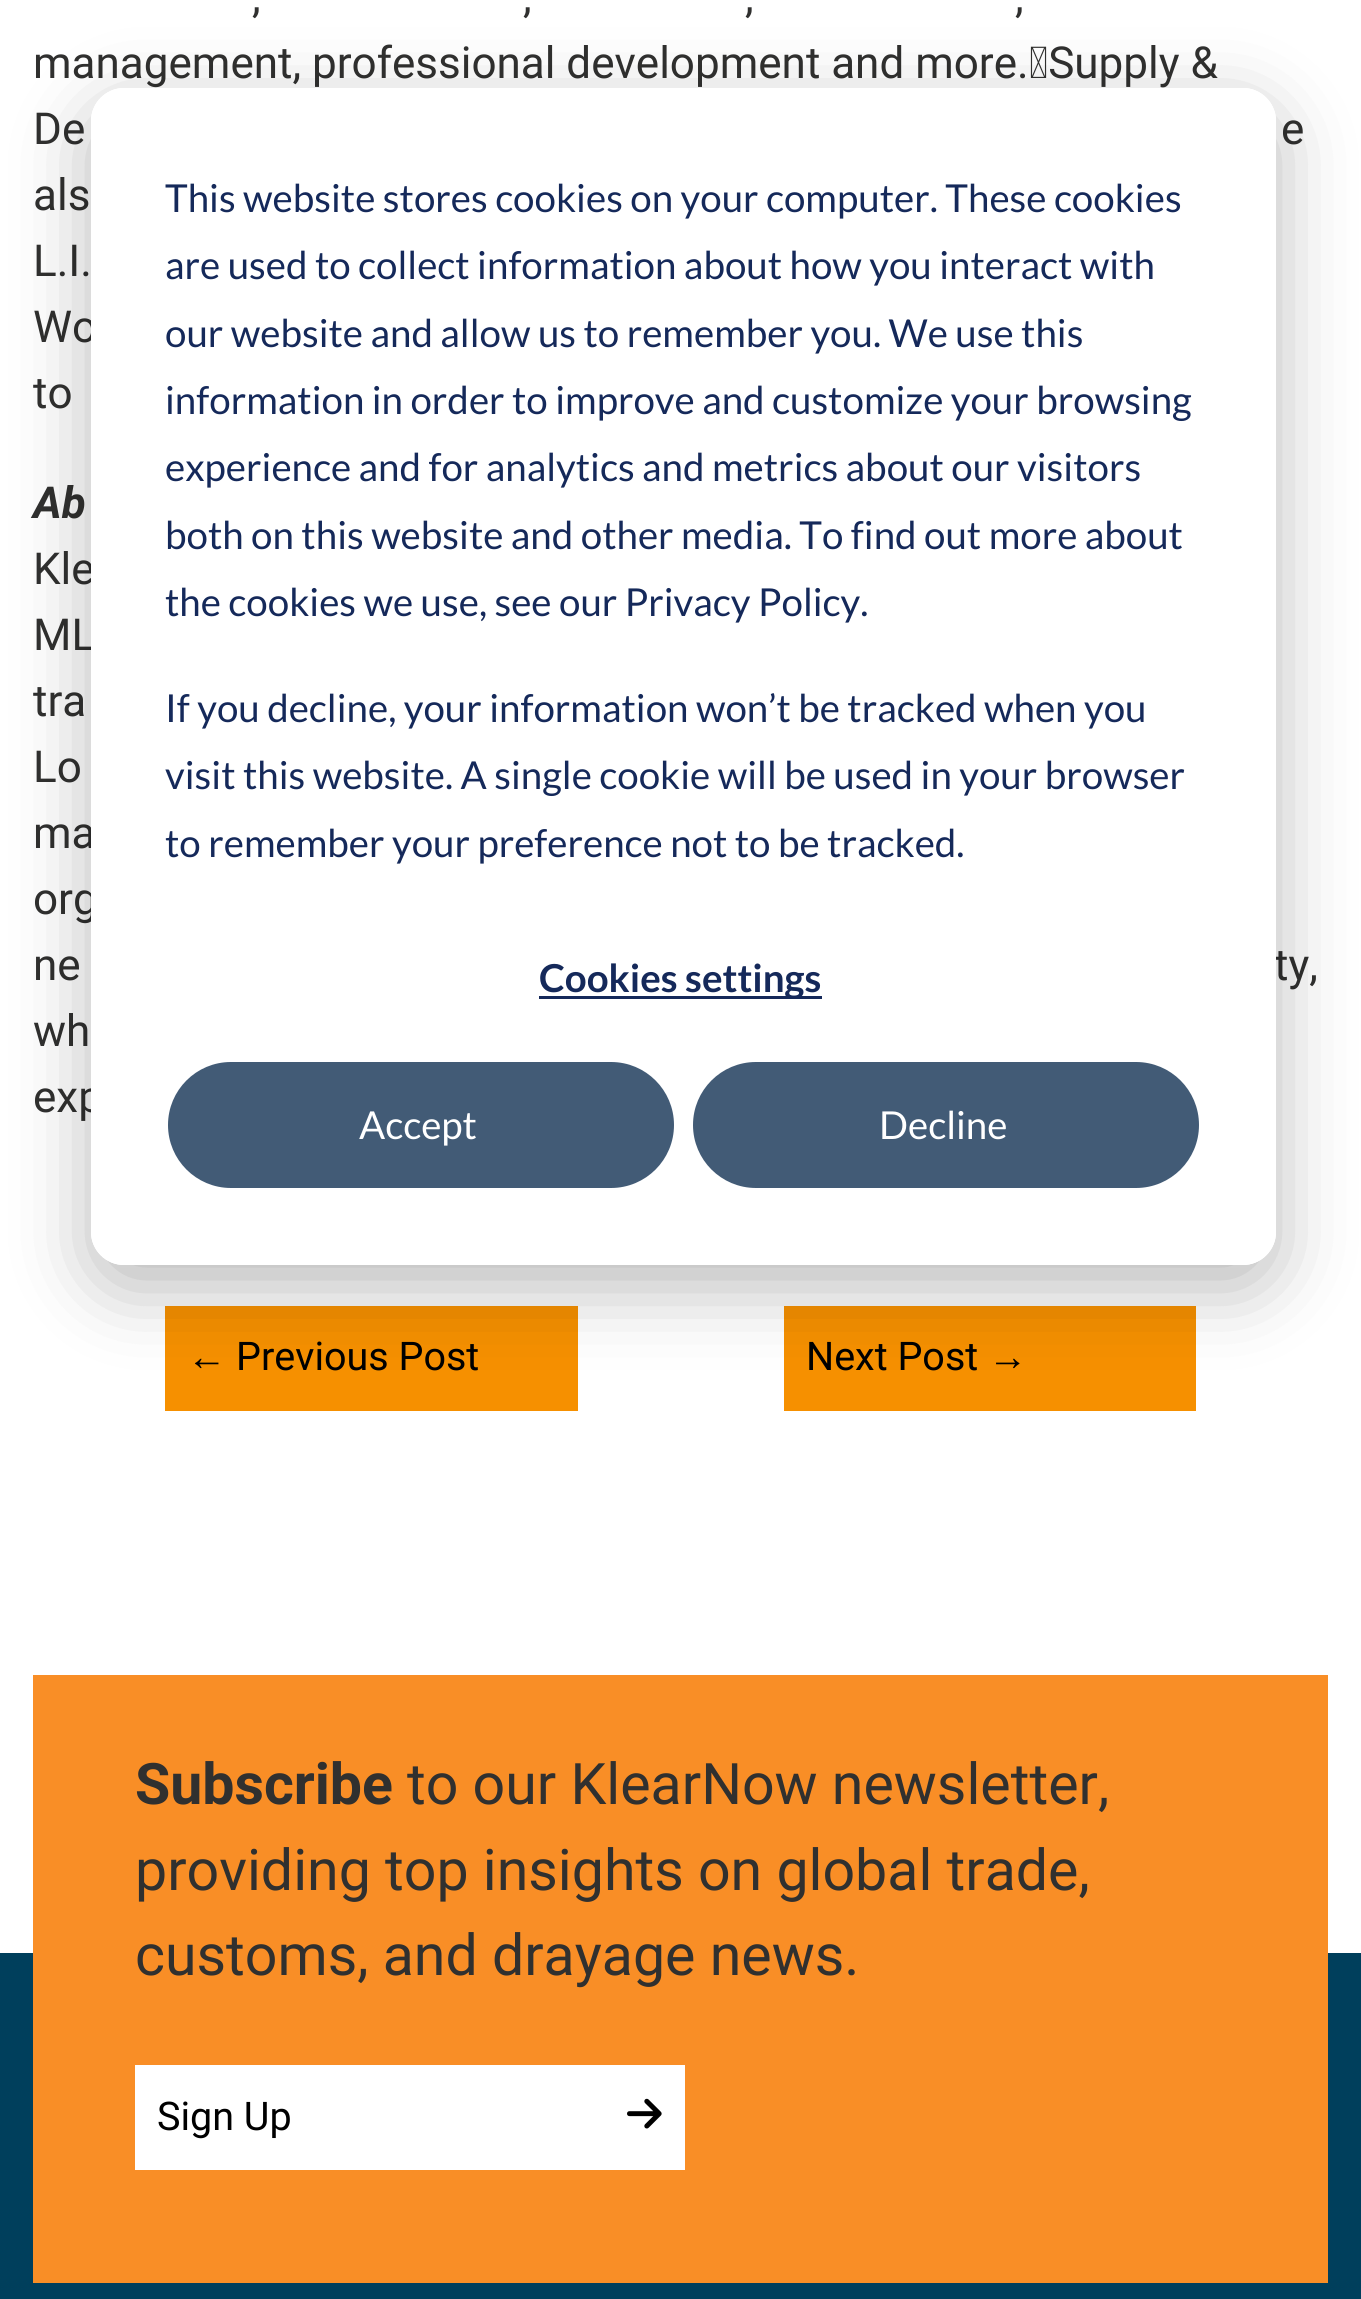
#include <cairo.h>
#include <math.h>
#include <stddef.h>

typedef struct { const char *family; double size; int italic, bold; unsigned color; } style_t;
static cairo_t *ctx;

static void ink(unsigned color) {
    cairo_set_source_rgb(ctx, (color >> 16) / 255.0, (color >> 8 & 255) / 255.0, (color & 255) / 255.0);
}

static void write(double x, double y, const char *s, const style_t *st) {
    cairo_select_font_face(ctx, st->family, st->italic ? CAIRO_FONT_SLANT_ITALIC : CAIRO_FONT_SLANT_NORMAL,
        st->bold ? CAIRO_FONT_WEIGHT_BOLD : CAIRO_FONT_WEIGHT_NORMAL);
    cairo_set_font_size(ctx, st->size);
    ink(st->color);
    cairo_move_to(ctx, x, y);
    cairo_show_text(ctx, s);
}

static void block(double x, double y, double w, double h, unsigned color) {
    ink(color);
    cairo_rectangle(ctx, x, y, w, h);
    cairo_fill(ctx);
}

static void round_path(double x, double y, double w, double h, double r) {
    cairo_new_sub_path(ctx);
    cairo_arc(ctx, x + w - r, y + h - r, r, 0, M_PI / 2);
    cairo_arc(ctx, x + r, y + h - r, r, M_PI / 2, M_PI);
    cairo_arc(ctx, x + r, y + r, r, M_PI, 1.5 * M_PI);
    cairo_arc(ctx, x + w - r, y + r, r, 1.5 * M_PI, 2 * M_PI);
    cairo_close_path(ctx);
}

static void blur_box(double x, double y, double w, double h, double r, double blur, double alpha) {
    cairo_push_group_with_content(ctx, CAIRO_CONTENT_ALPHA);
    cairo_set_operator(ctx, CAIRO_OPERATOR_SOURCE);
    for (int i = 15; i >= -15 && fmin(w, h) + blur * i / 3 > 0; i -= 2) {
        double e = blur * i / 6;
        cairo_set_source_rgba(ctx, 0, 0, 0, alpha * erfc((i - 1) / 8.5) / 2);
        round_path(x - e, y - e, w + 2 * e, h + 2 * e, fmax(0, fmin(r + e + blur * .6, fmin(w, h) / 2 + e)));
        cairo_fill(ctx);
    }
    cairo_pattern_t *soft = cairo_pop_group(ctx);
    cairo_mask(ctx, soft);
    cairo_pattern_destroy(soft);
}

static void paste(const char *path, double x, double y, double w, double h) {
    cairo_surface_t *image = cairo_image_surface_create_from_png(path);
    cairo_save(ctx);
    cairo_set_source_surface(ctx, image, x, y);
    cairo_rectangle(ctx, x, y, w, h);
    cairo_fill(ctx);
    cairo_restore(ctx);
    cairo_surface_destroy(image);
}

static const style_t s1 = {"Roboto", 44, 0, 0, 0x30302f};
static const style_t s2 = {"Roboto", 44, 1, 1, 0x30302f};
static const style_t s3 = {"Liberation Serif", 39.5, 0, 0, 0x000000};
static const style_t s4 = {"Roboto", 39.5, 0, 0, 0x000000};
static const style_t s5 = {"Roboto", 57.25, 0, 1, 0x30302f};
static const style_t s6 = {"Roboto", 57.25, 0, 0, 0x30302f};
static const style_t s7 = {"Lato", 38.5, 0, 0, 0x15295a};
static const style_t s8 = {"Lato", 38.5, 0, 1, 0x15295a};
static const style_t s9 = {"Lato", 38.5, 0, 0, 0xffffff};

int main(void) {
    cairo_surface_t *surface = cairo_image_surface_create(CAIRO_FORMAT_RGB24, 1361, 2299);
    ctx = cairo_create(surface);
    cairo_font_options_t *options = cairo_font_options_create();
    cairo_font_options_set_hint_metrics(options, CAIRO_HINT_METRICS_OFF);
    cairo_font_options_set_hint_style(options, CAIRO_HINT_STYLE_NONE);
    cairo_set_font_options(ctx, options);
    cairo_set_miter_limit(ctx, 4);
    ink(0xffffff);
    cairo_paint(ctx);
    write(252, 12, ",", &s1);
    write(523, 12, ",", &s1);
    write(745, 12, ",", &s1);
    write(1015, 12, ",", &s1);
    write(33, 78, "management, professional development and more. Supply &", &s1);
    write(33, 144, "De", &s1);
    write(1281, 144, "e", &s1);
    write(33, 210, "als", &s1);
    write(33, 276, "L.I.", &s1);
    write(33, 342, "Wo", &s1);
    write(33, 408, "to", &s1);
    write(33, 518, "Ab", &s2);
    write(33, 584, "Kle", &s1);
    write(33, 650, "ML", &s1);
    write(33, 716, "tra", &s1);
    write(33, 782, "Lo", &s1);
    write(33, 848, "ma", &s1);
    write(33, 914, "org", &s1);
    write(33, 980, "ne", &s1);
    write(1274, 980, "ty,", &s1);
    write(33, 1046, "wh", &s1);
    write(33, 1112, "exp", &s1);
    block(165, 1306, 413, 105, 0xf69000);
    write(187, 1370, "←", &s3);
    write(236, 1370, "Previous Post", &s4);
    block(784, 1306, 412, 105, 0xf69000);
    write(806, 1370, "Next Post", &s4);
    write(988, 1370, "→", &s3);
    block(0, 1953, 1361, 346, 0x003f5c);
    block(33, 1675, 1295, 608, 0xf98e26);
    write(135, 1804, "Subscribe", &s5);
    write(407, 1804, "to our KlearNow newsletter,", &s6);
    write(135, 1890, "providing top insights on global trade,", &s6);
    write(135, 1975, "customs, and drayage news.", &s6);
    block(135, 2065, 550, 105, 0xffffff);
    write(157, 2130, "Sign Up", &s4);
    paste("pic1.png", 627, 2098, 35, 31);
    cairo_save(ctx);
    cairo_set_fill_rule(ctx, CAIRO_FILL_RULE_EVEN_ODD);
    cairo_new_path(ctx);
    cairo_move_to(ctx, 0, 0);
    cairo_line_to(ctx, 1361, 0);
    cairo_line_to(ctx, 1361, 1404);
    cairo_line_to(ctx, 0, 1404);
    cairo_close_path(ctx);
    cairo_move_to(ctx, 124, 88);
    cairo_line_to(ctx, 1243, 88);
    cairo_curve_to(ctx, 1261, 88, 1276, 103, 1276, 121);
    cairo_line_to(ctx, 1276, 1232);
    cairo_curve_to(ctx, 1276, 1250, 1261, 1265, 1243, 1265);
    cairo_line_to(ctx, 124, 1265);
    cairo_curve_to(ctx, 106, 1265, 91, 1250, 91, 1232);
    cairo_line_to(ctx, 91, 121);
    cairo_curve_to(ctx, 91, 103, 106, 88, 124, 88);
    cairo_close_path(ctx);
    cairo_clip(ctx);
    ink(0x000000);
    blur_box(91, 110, 1185, 1177, 33, 38.5, 0.28);
    cairo_restore(ctx);
    ink(0xffffff);
    round_path(91, 88, 1185, 1177, 33);
    cairo_fill(ctx);
    write(165, 212, "This website stores cookies on your computer. These cookies", &s7);
    write(165, 279, "are used to collect information about how you interact with", &s7);
    write(165, 347, "our website and allow us to remember you. We use this", &s7);
    write(165, 414, "information in order to improve and customize your browsing", &s7);
    write(165, 481, "experience and for analytics and metrics about our visitors", &s7);
    write(165, 549, "both on this website and other media. To find out more about", &s7);
    write(165, 616, "the cookies we use, see our Privacy Policy.", &s7);
    write(165, 722, "If you decline, your information won’t be tracked when you", &s7);
    write(165, 789, "visit this website. A single cookie will be used in your browser", &s7);
    write(165, 857, "to remember your preference not to be tracked.", &s7);
    block(539, 996, 283, 3, 0x15295a);
    write(539, 992, "Cookies settings", &s8);
    ink(0x425b76);
    round_path(169.5, 1063.5, 503, 123, 61.5);
    cairo_fill_preserve(ctx);
    cairo_set_line_width(ctx, 3);
    cairo_stroke(ctx);
    write(359, 1139, "Accept", &s9);
    ink(0x425b76);
    round_path(694.5, 1063.5, 503, 123, 61.5);
    cairo_fill_preserve(ctx);
    cairo_stroke(ctx);
    write(879, 1139, "Decline", &s9);
    cairo_surface_write_to_png(surface, "screenshot.png");
    cairo_font_options_destroy(options);
    cairo_destroy(ctx);
    cairo_surface_destroy(surface);
    return 0;
}
